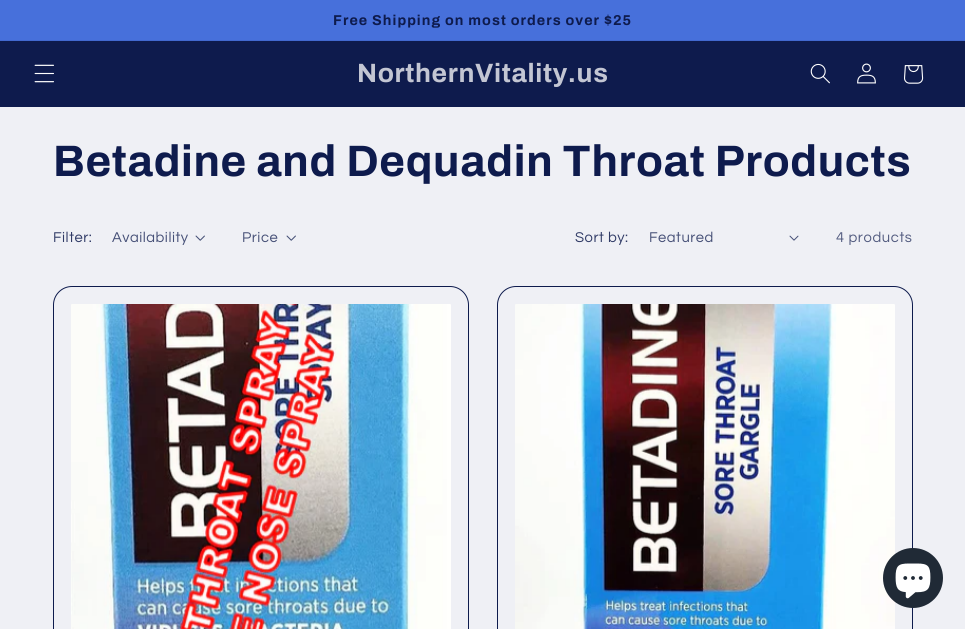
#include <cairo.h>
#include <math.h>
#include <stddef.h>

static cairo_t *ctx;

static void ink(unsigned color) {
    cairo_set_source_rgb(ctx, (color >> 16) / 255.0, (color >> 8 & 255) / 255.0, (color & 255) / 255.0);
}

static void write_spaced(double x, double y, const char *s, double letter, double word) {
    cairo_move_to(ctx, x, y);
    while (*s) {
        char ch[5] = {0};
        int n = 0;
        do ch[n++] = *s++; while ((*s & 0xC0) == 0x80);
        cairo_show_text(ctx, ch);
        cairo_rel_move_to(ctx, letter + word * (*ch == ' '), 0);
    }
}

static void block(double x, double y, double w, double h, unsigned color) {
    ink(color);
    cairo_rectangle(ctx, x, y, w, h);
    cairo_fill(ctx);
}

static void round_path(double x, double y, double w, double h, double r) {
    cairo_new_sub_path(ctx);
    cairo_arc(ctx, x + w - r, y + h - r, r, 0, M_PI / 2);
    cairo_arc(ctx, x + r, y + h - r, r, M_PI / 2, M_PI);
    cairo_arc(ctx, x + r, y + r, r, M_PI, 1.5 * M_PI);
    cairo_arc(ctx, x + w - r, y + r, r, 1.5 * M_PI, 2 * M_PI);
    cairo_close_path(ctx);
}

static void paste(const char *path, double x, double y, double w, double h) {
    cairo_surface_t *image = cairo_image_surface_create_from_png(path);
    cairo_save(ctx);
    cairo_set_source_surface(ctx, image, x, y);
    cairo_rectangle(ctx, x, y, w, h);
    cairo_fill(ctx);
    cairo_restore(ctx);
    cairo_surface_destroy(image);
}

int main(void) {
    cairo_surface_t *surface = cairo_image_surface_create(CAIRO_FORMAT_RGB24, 965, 629);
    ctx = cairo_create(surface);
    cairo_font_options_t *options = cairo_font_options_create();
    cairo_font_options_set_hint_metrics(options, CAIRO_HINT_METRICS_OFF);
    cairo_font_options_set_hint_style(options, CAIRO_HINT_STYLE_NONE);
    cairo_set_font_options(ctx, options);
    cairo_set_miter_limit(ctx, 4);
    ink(0xeff0f5);
    cairo_paint(ctx);
    block(0, 0, 965, 40, 0x4770db);
    block(0, 40, 965, 1, 0x4269d0);
    cairo_select_font_face(ctx, "Archivo", CAIRO_FONT_SLANT_NORMAL, CAIRO_FONT_WEIGHT_BOLD);
    cairo_set_font_size(ctx, 14.3);
    ink(0x0e1b4d);
    write_spaced(333, 25, "Free Shipping on most orders over $25", 1.05, 0);
    block(0, 41, 965, 66, 0x0e1b4d);
    paste("pic1.png", 34, 64, 20, 19);
    cairo_set_font_size(ctx, 26.5);
    ink(0xc3c6d3);
    write_spaced(357, 82, "NorthernVitality.us", 0.65, 0);
    paste("pic2.png", 810, 63, 20, 21);
    paste("pic3.png", 857, 63, 19, 21);
    paste("pic4.png", 904, 65, 20, 19);
    cairo_set_font_size(ctx, 44);
    ink(0x0e1b4d);
    write_spaced(53, 176, "Betadine and Dequadin Throat Products", 0.65, 0);
    cairo_select_font_face(ctx, "Questrial", CAIRO_FONT_SLANT_NORMAL, CAIRO_FONT_WEIGHT_NORMAL);
    cairo_set_font_size(ctx, 14.75);
    ink(0x303b66);
    write_spaced(53, 242, "Filter:", 0.5, 0);
    ink(0x465077);
    write_spaced(112, 242, "Availability", 0.5, 0);
    paste("pic5.png", 195, 235, 10, 6);
    write_spaced(242, 242, "Price", 0.5, 0);
    paste("pic5.png", 286, 235, 10, 6);
    ink(0x303b66);
    write_spaced(575, 242, "Sort by:", 0.5, 0);
    ink(0x465077);
    write_spaced(649, 242, "Featured", 0.5, 0);
    paste("pic6.png", 789, 235, 10, 6);
    ink(0x525b7f);
    write_spaced(836, 242, "4 products", 0.6, 0);
    round_path(53.5, 286.5, 415, 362, 18.5);
    ink(0x0e1b4d);
    cairo_set_line_width(ctx, 1);
    cairo_stroke(ctx);
    paste("pic7.png", 71, 304, 380, 325);
    round_path(497.5, 286.5, 415, 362, 18.5);
    cairo_stroke(ctx);
    paste("pic8.png", 515, 304, 380, 325);
    ink(0x202a36);
    cairo_arc(ctx, 913, 578, 30, 0, 2 * M_PI);
    cairo_fill(ctx);
    paste("pic9.png", 895, 563, 36, 36);
    cairo_surface_write_to_png(surface, "screenshot.png");
    cairo_font_options_destroy(options);
    cairo_destroy(ctx);
    cairo_surface_destroy(surface);
    return 0;
}
